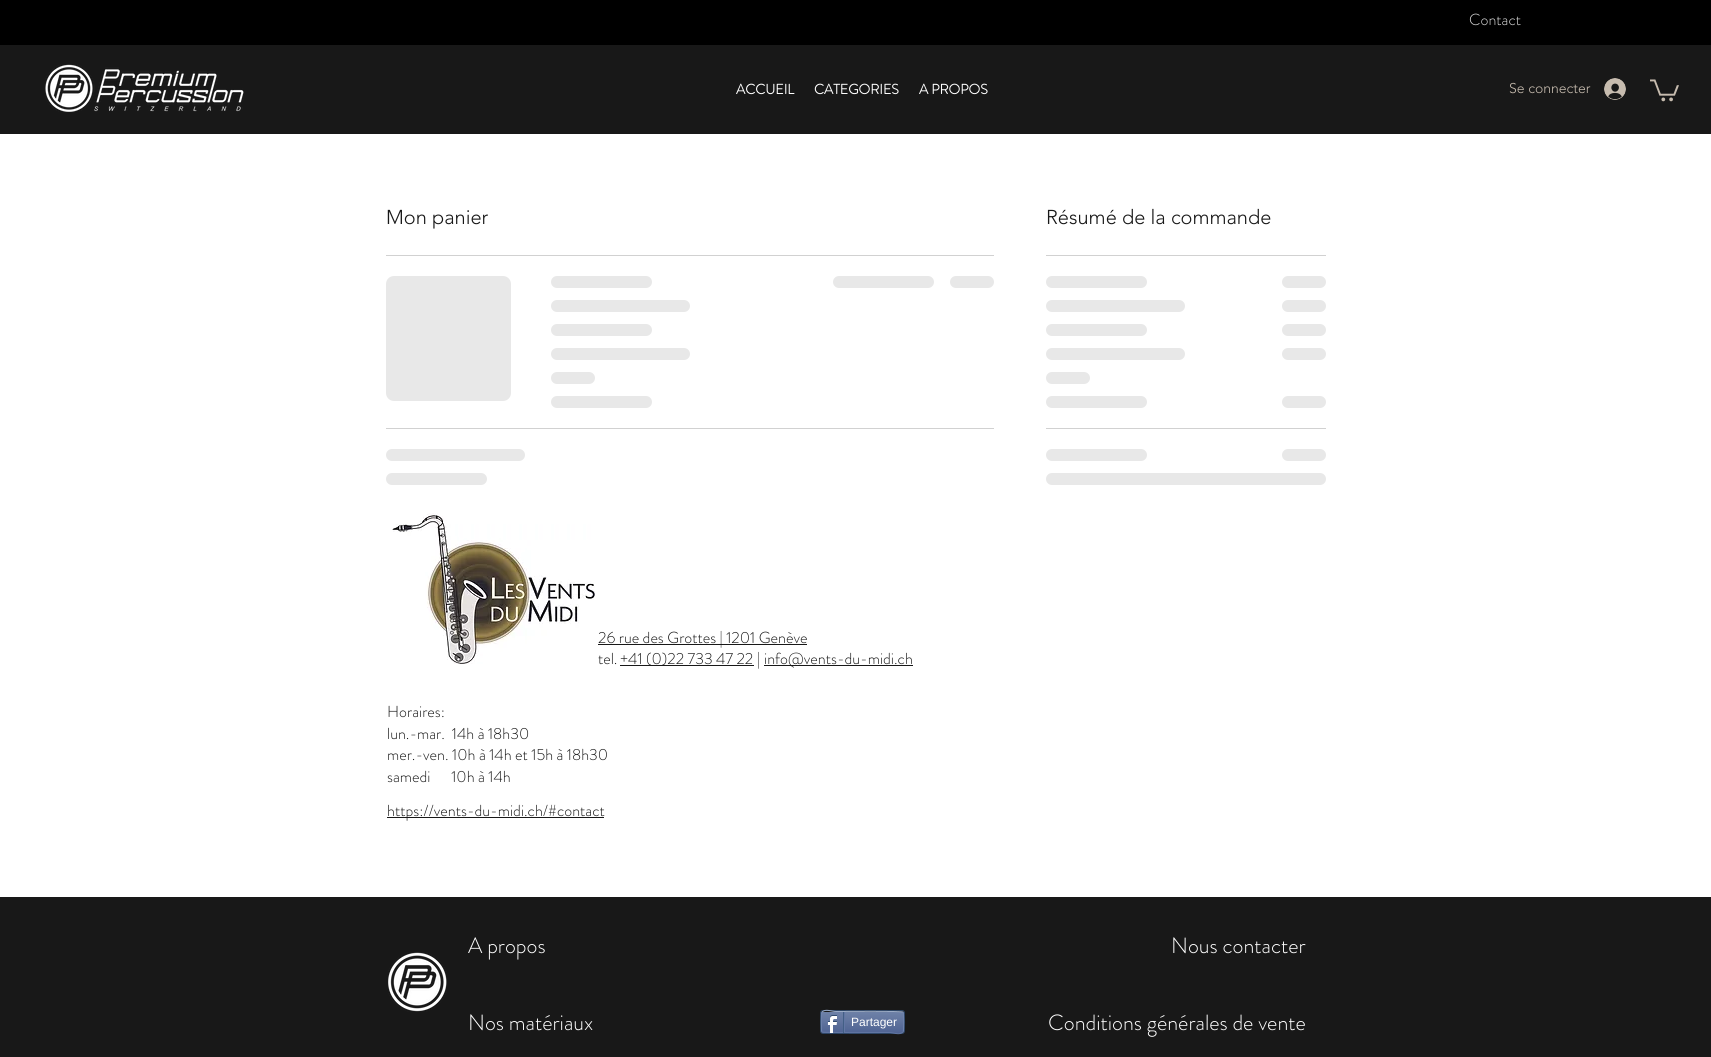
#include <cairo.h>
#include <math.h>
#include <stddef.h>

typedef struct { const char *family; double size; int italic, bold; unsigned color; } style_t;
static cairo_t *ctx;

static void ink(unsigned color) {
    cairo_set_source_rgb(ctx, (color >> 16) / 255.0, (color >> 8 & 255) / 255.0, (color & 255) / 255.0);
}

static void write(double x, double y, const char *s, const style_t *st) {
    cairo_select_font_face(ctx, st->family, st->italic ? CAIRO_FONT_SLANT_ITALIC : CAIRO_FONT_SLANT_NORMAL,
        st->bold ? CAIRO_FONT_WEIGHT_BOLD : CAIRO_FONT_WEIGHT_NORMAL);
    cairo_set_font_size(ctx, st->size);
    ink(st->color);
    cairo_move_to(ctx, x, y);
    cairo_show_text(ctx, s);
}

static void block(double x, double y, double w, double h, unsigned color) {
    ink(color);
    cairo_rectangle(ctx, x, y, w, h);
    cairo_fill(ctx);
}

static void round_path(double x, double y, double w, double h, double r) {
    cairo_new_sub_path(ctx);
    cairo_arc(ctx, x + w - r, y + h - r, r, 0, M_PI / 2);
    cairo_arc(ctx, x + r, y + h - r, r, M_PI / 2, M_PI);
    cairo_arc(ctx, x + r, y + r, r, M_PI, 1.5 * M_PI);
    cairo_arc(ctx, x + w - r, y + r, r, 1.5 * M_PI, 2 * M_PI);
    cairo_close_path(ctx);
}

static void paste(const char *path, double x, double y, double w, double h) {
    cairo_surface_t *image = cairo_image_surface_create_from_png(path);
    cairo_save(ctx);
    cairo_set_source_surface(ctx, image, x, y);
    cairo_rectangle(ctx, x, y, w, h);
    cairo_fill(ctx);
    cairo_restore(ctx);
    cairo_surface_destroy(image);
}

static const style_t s1 = {"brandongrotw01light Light", 16, 0, 0, 0xdadada};
static const style_t s2 = {"brandongrotw01light", 14, 0, 1, 0xffffff};
static const style_t s3 = {"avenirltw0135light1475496 Light", 14, 0, 0, 0xc7bcaf};
static const style_t s4 = {"avenirltw0135light1475496 Light", 20, 0, 0, 0x181818};
static const style_t s5 = {"brandongrotw01light Light", 16, 0, 0, 0x181818};
static const style_t s6 = {"brandongrotw01light Light", 22, 0, 0, 0xffffff};
static const style_t s7 = {"Liberation Sans", 12, 0, 0, 0xffffff};

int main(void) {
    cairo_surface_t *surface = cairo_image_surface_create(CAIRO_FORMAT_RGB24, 1711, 1057);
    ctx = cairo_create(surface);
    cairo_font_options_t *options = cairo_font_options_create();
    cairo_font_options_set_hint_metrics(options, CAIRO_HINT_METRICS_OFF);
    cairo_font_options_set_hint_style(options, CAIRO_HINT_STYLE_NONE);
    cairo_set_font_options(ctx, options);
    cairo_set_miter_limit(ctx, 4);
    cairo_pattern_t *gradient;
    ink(0xffffff);
    cairo_paint(ctx);
    block(0, 0, 1711, 45, 0x000000);
    write(1469, 25, "Contact", &s1);
    block(0, 45, 1711, 89, 0x181818);
    paste("pic1.png", 45, 64, 199, 48);
    write(736, 94, "ACCUEIL", &s2);
    write(814, 94, "CATEGORIES", &s2);
    write(919, 94, "A PROPOS", &s2);
    write(1509, 93, "Se connecter", &s3);
    paste("pic2.png", 1604, 78, 22, 22);
    paste("pic3.png", 1650, 79, 29, 23);
    block(386, 255, 608, 1, 0xd1d1d1);
    write(386, 224, "Mon panier", &s4);
    gradient = cairo_pattern_create_linear(386, 339, 886, 339);
    cairo_pattern_add_color_stop_rgba(gradient, 0.25, 0.91, 0.91, 0.91, 1);
    cairo_pattern_add_color_stop_rgba(gradient, 0.37, 0.82, 0.82, 0.82, 1);
    cairo_pattern_add_color_stop_rgba(gradient, 0.63, 0.91, 0.91, 0.91, 1);
    cairo_set_source(ctx, gradient);
    cairo_pattern_destroy(gradient);
    round_path(386, 276, 125, 125, 8);
    cairo_fill(ctx);
    gradient = cairo_pattern_create_linear(551, 282, 955, 282);
    cairo_pattern_add_color_stop_rgba(gradient, 0.25, 0.91, 0.91, 0.91, 1);
    cairo_pattern_add_color_stop_rgba(gradient, 0.37, 0.82, 0.82, 0.82, 1);
    cairo_pattern_add_color_stop_rgba(gradient, 0.63, 0.91, 0.91, 0.91, 1);
    cairo_set_source(ctx, gradient);
    cairo_pattern_destroy(gradient);
    round_path(551, 276, 101, 12, 6);
    cairo_fill(ctx);
    gradient = cairo_pattern_create_linear(551, 306, 1107, 306);
    cairo_pattern_add_color_stop_rgba(gradient, 0.25, 0.91, 0.91, 0.91, 1);
    cairo_pattern_add_color_stop_rgba(gradient, 0.37, 0.82, 0.82, 0.82, 1);
    cairo_pattern_add_color_stop_rgba(gradient, 0.63, 0.91, 0.91, 0.91, 1);
    cairo_set_source(ctx, gradient);
    cairo_pattern_destroy(gradient);
    round_path(551, 300, 139, 12, 6);
    cairo_fill(ctx);
    gradient = cairo_pattern_create_linear(551, 330, 955, 330);
    cairo_pattern_add_color_stop_rgba(gradient, 0.25, 0.91, 0.91, 0.91, 1);
    cairo_pattern_add_color_stop_rgba(gradient, 0.37, 0.82, 0.82, 0.82, 1);
    cairo_pattern_add_color_stop_rgba(gradient, 0.63, 0.91, 0.91, 0.91, 1);
    cairo_set_source(ctx, gradient);
    cairo_pattern_destroy(gradient);
    round_path(551, 324, 101, 12, 6);
    cairo_fill(ctx);
    gradient = cairo_pattern_create_linear(551, 354, 1107, 354);
    cairo_pattern_add_color_stop_rgba(gradient, 0.25, 0.91, 0.91, 0.91, 1);
    cairo_pattern_add_color_stop_rgba(gradient, 0.37, 0.82, 0.82, 0.82, 1);
    cairo_pattern_add_color_stop_rgba(gradient, 0.63, 0.91, 0.91, 0.91, 1);
    cairo_set_source(ctx, gradient);
    cairo_pattern_destroy(gradient);
    round_path(551, 348, 139, 12, 6);
    cairo_fill(ctx);
    gradient = cairo_pattern_create_linear(551, 378, 727, 378);
    cairo_pattern_add_color_stop_rgba(gradient, 0.25, 0.91, 0.91, 0.91, 1);
    cairo_pattern_add_color_stop_rgba(gradient, 0.37, 0.82, 0.82, 0.82, 1);
    cairo_pattern_add_color_stop_rgba(gradient, 0.63, 0.91, 0.91, 0.91, 1);
    cairo_set_source(ctx, gradient);
    cairo_pattern_destroy(gradient);
    round_path(551, 372, 44, 12, 6);
    cairo_fill(ctx);
    gradient = cairo_pattern_create_linear(551, 402, 955, 402);
    cairo_pattern_add_color_stop_rgba(gradient, 0.25, 0.91, 0.91, 0.91, 1);
    cairo_pattern_add_color_stop_rgba(gradient, 0.37, 0.82, 0.82, 0.82, 1);
    cairo_pattern_add_color_stop_rgba(gradient, 0.63, 0.91, 0.91, 0.91, 1);
    cairo_set_source(ctx, gradient);
    cairo_pattern_destroy(gradient);
    round_path(551, 396, 101, 12, 6);
    cairo_fill(ctx);
    gradient = cairo_pattern_create_linear(833, 282, 1237, 282);
    cairo_pattern_add_color_stop_rgba(gradient, 0.25, 0.91, 0.91, 0.91, 1);
    cairo_pattern_add_color_stop_rgba(gradient, 0.37, 0.82, 0.82, 0.82, 1);
    cairo_pattern_add_color_stop_rgba(gradient, 0.63, 0.91, 0.91, 0.91, 1);
    cairo_set_source(ctx, gradient);
    cairo_pattern_destroy(gradient);
    round_path(833, 276, 101, 12, 6);
    cairo_fill(ctx);
    gradient = cairo_pattern_create_linear(950, 282, 1126, 282);
    cairo_pattern_add_color_stop_rgba(gradient, 0.25, 0.91, 0.91, 0.91, 1);
    cairo_pattern_add_color_stop_rgba(gradient, 0.37, 0.82, 0.82, 0.82, 1);
    cairo_pattern_add_color_stop_rgba(gradient, 0.63, 0.91, 0.91, 0.91, 1);
    cairo_set_source(ctx, gradient);
    cairo_pattern_destroy(gradient);
    round_path(950, 276, 44, 12, 6);
    cairo_fill(ctx);
    block(386, 428, 608, 1, 0xd1d1d1);
    gradient = cairo_pattern_create_linear(386, 455, 942, 455);
    cairo_pattern_add_color_stop_rgba(gradient, 0.25, 0.91, 0.91, 0.91, 1);
    cairo_pattern_add_color_stop_rgba(gradient, 0.37, 0.82, 0.82, 0.82, 1);
    cairo_pattern_add_color_stop_rgba(gradient, 0.63, 0.91, 0.91, 0.91, 1);
    cairo_set_source(ctx, gradient);
    cairo_pattern_destroy(gradient);
    round_path(386, 449, 139, 12, 6);
    cairo_fill(ctx);
    gradient = cairo_pattern_create_linear(386, 479, 790, 479);
    cairo_pattern_add_color_stop_rgba(gradient, 0.25, 0.91, 0.91, 0.91, 1);
    cairo_pattern_add_color_stop_rgba(gradient, 0.37, 0.82, 0.82, 0.82, 1);
    cairo_pattern_add_color_stop_rgba(gradient, 0.63, 0.91, 0.91, 0.91, 1);
    cairo_set_source(ctx, gradient);
    cairo_pattern_destroy(gradient);
    round_path(386, 473, 101, 12, 6);
    cairo_fill(ctx);
    block(1046, 255, 280, 1, 0xd1d1d1);
    write(1046, 224, "Résumé de la commande", &s4);
    gradient = cairo_pattern_create_linear(1046, 282, 1450, 282);
    cairo_pattern_add_color_stop_rgba(gradient, 0.25, 0.91, 0.91, 0.91, 1);
    cairo_pattern_add_color_stop_rgba(gradient, 0.37, 0.82, 0.82, 0.82, 1);
    cairo_pattern_add_color_stop_rgba(gradient, 0.63, 0.91, 0.91, 0.91, 1);
    cairo_set_source(ctx, gradient);
    cairo_pattern_destroy(gradient);
    round_path(1046, 276, 101, 12, 6);
    cairo_fill(ctx);
    gradient = cairo_pattern_create_linear(1282, 282, 1458, 282);
    cairo_pattern_add_color_stop_rgba(gradient, 0.25, 0.91, 0.91, 0.91, 1);
    cairo_pattern_add_color_stop_rgba(gradient, 0.37, 0.82, 0.82, 0.82, 1);
    cairo_pattern_add_color_stop_rgba(gradient, 0.63, 0.91, 0.91, 0.91, 1);
    cairo_set_source(ctx, gradient);
    cairo_pattern_destroy(gradient);
    round_path(1282, 276, 44, 12, 6);
    cairo_fill(ctx);
    gradient = cairo_pattern_create_linear(1046, 306, 1602, 306);
    cairo_pattern_add_color_stop_rgba(gradient, 0.25, 0.91, 0.91, 0.91, 1);
    cairo_pattern_add_color_stop_rgba(gradient, 0.37, 0.82, 0.82, 0.82, 1);
    cairo_pattern_add_color_stop_rgba(gradient, 0.63, 0.91, 0.91, 0.91, 1);
    cairo_set_source(ctx, gradient);
    cairo_pattern_destroy(gradient);
    round_path(1046, 300, 139, 12, 6);
    cairo_fill(ctx);
    gradient = cairo_pattern_create_linear(1282, 306, 1458, 306);
    cairo_pattern_add_color_stop_rgba(gradient, 0.25, 0.91, 0.91, 0.91, 1);
    cairo_pattern_add_color_stop_rgba(gradient, 0.37, 0.82, 0.82, 0.82, 1);
    cairo_pattern_add_color_stop_rgba(gradient, 0.63, 0.91, 0.91, 0.91, 1);
    cairo_set_source(ctx, gradient);
    cairo_pattern_destroy(gradient);
    round_path(1282, 300, 44, 12, 6);
    cairo_fill(ctx);
    gradient = cairo_pattern_create_linear(1046, 330, 1450, 330);
    cairo_pattern_add_color_stop_rgba(gradient, 0.25, 0.91, 0.91, 0.91, 1);
    cairo_pattern_add_color_stop_rgba(gradient, 0.37, 0.82, 0.82, 0.82, 1);
    cairo_pattern_add_color_stop_rgba(gradient, 0.63, 0.91, 0.91, 0.91, 1);
    cairo_set_source(ctx, gradient);
    cairo_pattern_destroy(gradient);
    round_path(1046, 324, 101, 12, 6);
    cairo_fill(ctx);
    gradient = cairo_pattern_create_linear(1282, 330, 1458, 330);
    cairo_pattern_add_color_stop_rgba(gradient, 0.25, 0.91, 0.91, 0.91, 1);
    cairo_pattern_add_color_stop_rgba(gradient, 0.37, 0.82, 0.82, 0.82, 1);
    cairo_pattern_add_color_stop_rgba(gradient, 0.63, 0.91, 0.91, 0.91, 1);
    cairo_set_source(ctx, gradient);
    cairo_pattern_destroy(gradient);
    round_path(1282, 324, 44, 12, 6);
    cairo_fill(ctx);
    gradient = cairo_pattern_create_linear(1046, 354, 1602, 354);
    cairo_pattern_add_color_stop_rgba(gradient, 0.25, 0.91, 0.91, 0.91, 1);
    cairo_pattern_add_color_stop_rgba(gradient, 0.37, 0.82, 0.82, 0.82, 1);
    cairo_pattern_add_color_stop_rgba(gradient, 0.63, 0.91, 0.91, 0.91, 1);
    cairo_set_source(ctx, gradient);
    cairo_pattern_destroy(gradient);
    round_path(1046, 348, 139, 12, 6);
    cairo_fill(ctx);
    gradient = cairo_pattern_create_linear(1282, 354, 1458, 354);
    cairo_pattern_add_color_stop_rgba(gradient, 0.25, 0.91, 0.91, 0.91, 1);
    cairo_pattern_add_color_stop_rgba(gradient, 0.37, 0.82, 0.82, 0.82, 1);
    cairo_pattern_add_color_stop_rgba(gradient, 0.63, 0.91, 0.91, 0.91, 1);
    cairo_set_source(ctx, gradient);
    cairo_pattern_destroy(gradient);
    round_path(1282, 348, 44, 12, 6);
    cairo_fill(ctx);
    gradient = cairo_pattern_create_linear(1046, 378, 1222, 378);
    cairo_pattern_add_color_stop_rgba(gradient, 0.25, 0.91, 0.91, 0.91, 1);
    cairo_pattern_add_color_stop_rgba(gradient, 0.37, 0.82, 0.82, 0.82, 1);
    cairo_pattern_add_color_stop_rgba(gradient, 0.63, 0.91, 0.91, 0.91, 1);
    cairo_set_source(ctx, gradient);
    cairo_pattern_destroy(gradient);
    round_path(1046, 372, 44, 12, 6);
    cairo_fill(ctx);
    gradient = cairo_pattern_create_linear(1046, 402, 1450, 402);
    cairo_pattern_add_color_stop_rgba(gradient, 0.25, 0.91, 0.91, 0.91, 1);
    cairo_pattern_add_color_stop_rgba(gradient, 0.37, 0.82, 0.82, 0.82, 1);
    cairo_pattern_add_color_stop_rgba(gradient, 0.63, 0.91, 0.91, 0.91, 1);
    cairo_set_source(ctx, gradient);
    cairo_pattern_destroy(gradient);
    round_path(1046, 396, 101, 12, 6);
    cairo_fill(ctx);
    gradient = cairo_pattern_create_linear(1282, 402, 1458, 402);
    cairo_pattern_add_color_stop_rgba(gradient, 0.25, 0.91, 0.91, 0.91, 1);
    cairo_pattern_add_color_stop_rgba(gradient, 0.37, 0.82, 0.82, 0.82, 1);
    cairo_pattern_add_color_stop_rgba(gradient, 0.63, 0.91, 0.91, 0.91, 1);
    cairo_set_source(ctx, gradient);
    cairo_pattern_destroy(gradient);
    round_path(1282, 396, 44, 12, 6);
    cairo_fill(ctx);
    block(1046, 428, 280, 1, 0xd1d1d1);
    gradient = cairo_pattern_create_linear(1046, 455, 1450, 455);
    cairo_pattern_add_color_stop_rgba(gradient, 0.25, 0.91, 0.91, 0.91, 1);
    cairo_pattern_add_color_stop_rgba(gradient, 0.37, 0.82, 0.82, 0.82, 1);
    cairo_pattern_add_color_stop_rgba(gradient, 0.63, 0.91, 0.91, 0.91, 1);
    cairo_set_source(ctx, gradient);
    cairo_pattern_destroy(gradient);
    round_path(1046, 449, 101, 12, 6);
    cairo_fill(ctx);
    gradient = cairo_pattern_create_linear(1282, 455, 1458, 455);
    cairo_pattern_add_color_stop_rgba(gradient, 0.25, 0.91, 0.91, 0.91, 1);
    cairo_pattern_add_color_stop_rgba(gradient, 0.37, 0.82, 0.82, 0.82, 1);
    cairo_pattern_add_color_stop_rgba(gradient, 0.63, 0.91, 0.91, 0.91, 1);
    cairo_set_source(ctx, gradient);
    cairo_pattern_destroy(gradient);
    round_path(1282, 449, 44, 12, 6);
    cairo_fill(ctx);
    gradient = cairo_pattern_create_linear(1046, 479, 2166, 479);
    cairo_pattern_add_color_stop_rgba(gradient, 0.25, 0.91, 0.91, 0.91, 1);
    cairo_pattern_add_color_stop_rgba(gradient, 0.37, 0.82, 0.82, 0.82, 1);
    cairo_pattern_add_color_stop_rgba(gradient, 0.63, 0.91, 0.91, 0.91, 1);
    cairo_set_source(ctx, gradient);
    cairo_pattern_destroy(gradient);
    round_path(1046, 473, 280, 12, 6);
    cairo_fill(ctx);
    paste("pic4.png", 392, 513, 203, 151);
    block(598, 644, 209, 1, 0x181818);
    write(598, 643, "26 rue des Grottes | 1201 Genève", &s5);
    write(598, 664, "tel.", &s5);
    block(620, 665, 134, 1, 0x181818);
    write(620, 664, "+41 (0)22 733 47 22 |", &s5);
    block(764, 665, 149, 1, 0x181818);
    write(764, 664, "info@vents-du-midi.ch", &s5);
    write(387, 717, "Horaires:", &s5);
    write(387, 739, "lun.-mar.  14h à 18h30", &s5);
    write(387, 760, "mer.-ven. 10h à 14h et 15h à 18h30", &s5);
    write(387, 782, "samedi      10h à 14h", &s5);
    block(387, 817, 217, 1, 0x181818);
    write(387, 816, "https://vents-du-midi.ch/#contact", &s5);
    block(0, 897, 1711, 160, 0x181818);
    write(468, 953, "A propos", &s6);
    write(1171, 953, "Nous contacter", &s6);
    paste("pic5.png", 388, 952, 59, 60);
    write(468, 1030, "Nos matériaux", &s6);
    round_path(820.5, 1010.5, 84, 23, 2.5);
    ink(0x2d4565);
    cairo_set_line_width(ctx, 1);
    cairo_stroke(ctx);
    paste("pic6.png", 821, 1012, 83, 21);
    cairo_new_path(ctx);
    cairo_move_to(ctx, 822, 1012);
    cairo_curve_to(ctx, 825.5, 1008.5, 831.5, 1011.5, 836, 1011.5);
    cairo_curve_to(ctx, 843, 1011.5, 902, 1011, 903, 1012);
    ink(0x9aabc6);
    cairo_stroke(ctx);
    cairo_new_path(ctx);
    cairo_move_to(ctx, 903, 1012);
    cairo_curve_to(ctx, 904, 1012.5, 904, 1031.5, 903, 1032);
    ink(0x6f83ad);
    cairo_stroke(ctx);
    cairo_new_path(ctx);
    cairo_move_to(ctx, 903, 1032);
    cairo_curve_to(ctx, 899.5, 1035.5, 893.5, 1032.5, 889, 1032.5);
    cairo_curve_to(ctx, 882, 1032.5, 823, 1033, 822, 1032);
    ink(0x6176a3);
    cairo_stroke(ctx);
    cairo_new_path(ctx);
    cairo_move_to(ctx, 822, 1032);
    cairo_curve_to(ctx, 821, 1031.5, 821, 1012.5, 822, 1012);
    ink(0x6f83ad);
    cairo_stroke(ctx);
    paste("pic7.png", 827, 1015, 10, 18);
    block(843, 1012, 1, 21, 0x425e85);
    write(851, 1026, "Partager", &s7);
    block(844, 1012, 1, 20, 0x6176a3);
    write(1048, 1030, "Conditions générales de vente", &s6);
    cairo_surface_write_to_png(surface, "screenshot.png");
    cairo_font_options_destroy(options);
    cairo_destroy(ctx);
    cairo_surface_destroy(surface);
    return 0;
}
